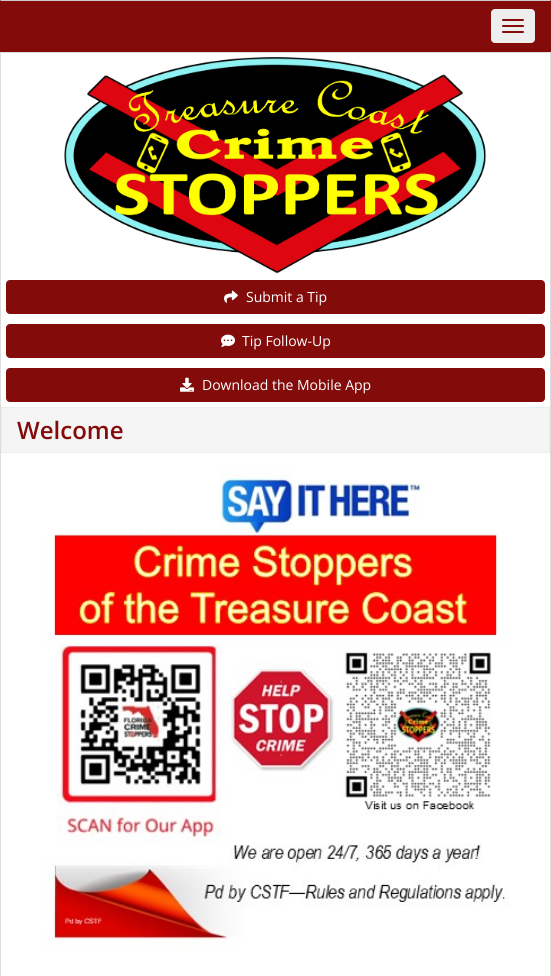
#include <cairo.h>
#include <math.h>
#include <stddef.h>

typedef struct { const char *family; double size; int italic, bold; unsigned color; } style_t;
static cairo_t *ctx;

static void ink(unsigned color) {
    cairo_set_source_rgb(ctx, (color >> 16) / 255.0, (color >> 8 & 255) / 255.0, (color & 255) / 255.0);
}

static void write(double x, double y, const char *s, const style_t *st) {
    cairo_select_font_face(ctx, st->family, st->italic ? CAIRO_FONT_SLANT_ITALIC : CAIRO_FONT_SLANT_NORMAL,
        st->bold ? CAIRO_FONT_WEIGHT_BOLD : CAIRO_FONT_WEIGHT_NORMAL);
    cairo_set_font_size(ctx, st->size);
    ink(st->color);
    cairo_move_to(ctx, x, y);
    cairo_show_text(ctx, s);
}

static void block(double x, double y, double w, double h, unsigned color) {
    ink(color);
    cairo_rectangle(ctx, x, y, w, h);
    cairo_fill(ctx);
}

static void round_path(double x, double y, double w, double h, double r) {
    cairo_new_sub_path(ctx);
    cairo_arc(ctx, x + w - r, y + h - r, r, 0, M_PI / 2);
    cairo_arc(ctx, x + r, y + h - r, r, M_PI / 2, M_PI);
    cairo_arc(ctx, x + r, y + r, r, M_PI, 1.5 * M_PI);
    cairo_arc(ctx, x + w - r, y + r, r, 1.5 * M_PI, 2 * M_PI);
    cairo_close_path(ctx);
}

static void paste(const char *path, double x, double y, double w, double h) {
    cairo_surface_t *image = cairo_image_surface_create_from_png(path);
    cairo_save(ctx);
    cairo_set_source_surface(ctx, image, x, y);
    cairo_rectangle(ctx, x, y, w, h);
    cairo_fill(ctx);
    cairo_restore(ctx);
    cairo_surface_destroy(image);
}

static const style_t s1 = {"Open Sans", 14, 0, 0, 0xffffff};
static const style_t s2 = {"Open Sans SemiBold", 24, 0, 0, 0x830c0b};

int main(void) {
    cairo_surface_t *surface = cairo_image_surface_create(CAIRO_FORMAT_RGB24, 551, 976);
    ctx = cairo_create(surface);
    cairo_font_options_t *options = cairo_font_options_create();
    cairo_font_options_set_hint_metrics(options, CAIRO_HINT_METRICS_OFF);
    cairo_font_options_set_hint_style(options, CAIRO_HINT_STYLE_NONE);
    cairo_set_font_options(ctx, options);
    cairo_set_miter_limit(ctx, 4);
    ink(0xffffff);
    cairo_paint(ctx);
    block(0, 0, 551, 52, 0x830c0b);
    ink(0xcccccc);
    cairo_new_path(ctx);
    cairo_move_to(ctx, 0, 0);
    cairo_line_to(ctx, 551, 0);
    cairo_line_to(ctx, 550, 1);
    cairo_line_to(ctx, 1, 1);
    cairo_close_path(ctx);
    cairo_fill(ctx);
    ink(0xeeeeee);
    round_path(491, 9, 44, 34, 4);
    cairo_fill(ctx);
    ink(0x830c0b);
    round_path(502, 19, 22, 2, 1);
    cairo_fill(ctx);
    round_path(502, 25, 22, 2, 1);
    cairo_fill(ctx);
    round_path(502, 31, 22, 2, 1);
    cairo_fill(ctx);
    block(0, 52, 551, 1, 0xdddddd);
    block(550, 52, 1, 924, 0xdddddd);
    block(0, 52, 1, 924, 0xdddddd);
    paste("pic1.png", 64, 57, 422, 217);
    ink(0x830c0b);
    round_path(6.5, 280.5, 538, 33, 3.5);
    cairo_fill_preserve(ctx);
    cairo_set_line_width(ctx, 1);
    cairo_stroke(ctx);
    paste("pic2.png", 224, 290, 14, 13);
    write(246, 302, "Submit a Tip", &s1);
    ink(0x830c0b);
    round_path(6.5, 324.5, 538, 33, 3.5);
    cairo_fill_preserve(ctx);
    cairo_stroke(ctx);
    paste("pic3.png", 221, 334, 14, 13);
    write(242, 346, "Tip Follow-Up", &s1);
    ink(0x830c0b);
    round_path(6.5, 368.5, 538, 33, 3.5);
    cairo_fill_preserve(ctx);
    cairo_stroke(ctx);
    paste("pic4.png", 180, 377, 14, 15);
    write(202, 390, "Download the Mobile App", &s1);
    ink(0xf5f5f5);
    cairo_rectangle(ctx, 1.5, 407.5, 548, 45);
    cairo_fill_preserve(ctx);
    ink(0xeeeeee);
    cairo_stroke(ctx);
    write(17, 439, "Welcome", &s2);
    paste("pic5.png", 41, 466, 469, 486);
    cairo_surface_write_to_png(surface, "screenshot.png");
    cairo_font_options_destroy(options);
    cairo_destroy(ctx);
    cairo_surface_destroy(surface);
    return 0;
}
